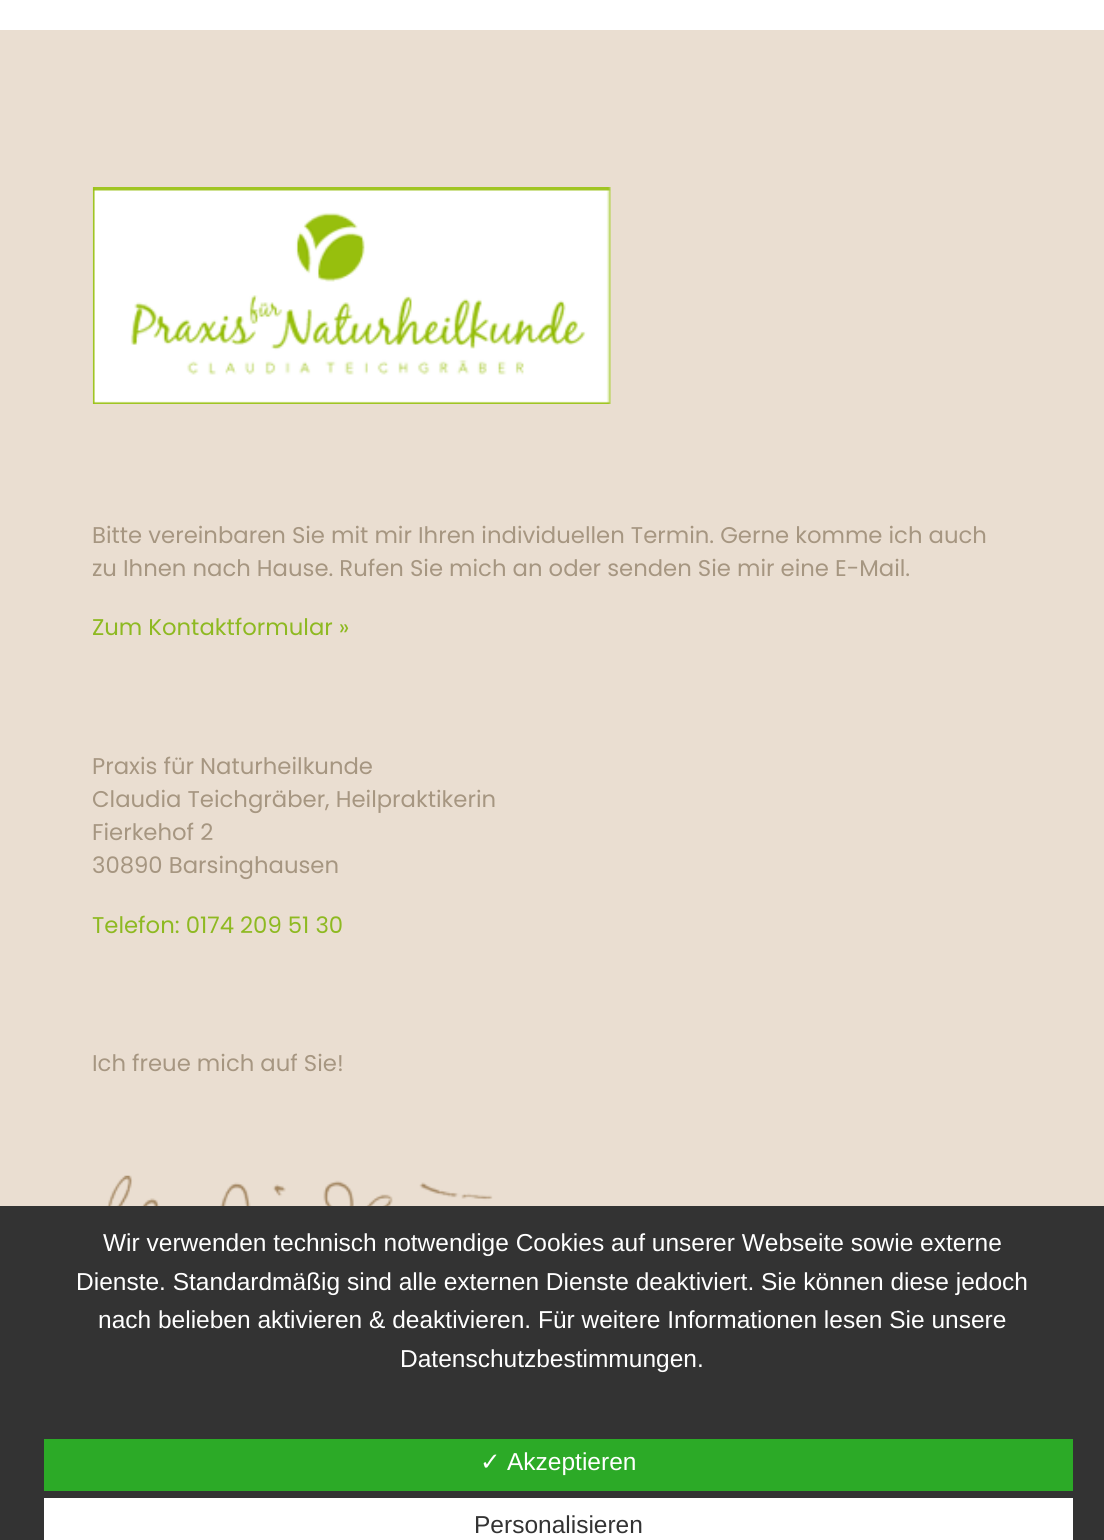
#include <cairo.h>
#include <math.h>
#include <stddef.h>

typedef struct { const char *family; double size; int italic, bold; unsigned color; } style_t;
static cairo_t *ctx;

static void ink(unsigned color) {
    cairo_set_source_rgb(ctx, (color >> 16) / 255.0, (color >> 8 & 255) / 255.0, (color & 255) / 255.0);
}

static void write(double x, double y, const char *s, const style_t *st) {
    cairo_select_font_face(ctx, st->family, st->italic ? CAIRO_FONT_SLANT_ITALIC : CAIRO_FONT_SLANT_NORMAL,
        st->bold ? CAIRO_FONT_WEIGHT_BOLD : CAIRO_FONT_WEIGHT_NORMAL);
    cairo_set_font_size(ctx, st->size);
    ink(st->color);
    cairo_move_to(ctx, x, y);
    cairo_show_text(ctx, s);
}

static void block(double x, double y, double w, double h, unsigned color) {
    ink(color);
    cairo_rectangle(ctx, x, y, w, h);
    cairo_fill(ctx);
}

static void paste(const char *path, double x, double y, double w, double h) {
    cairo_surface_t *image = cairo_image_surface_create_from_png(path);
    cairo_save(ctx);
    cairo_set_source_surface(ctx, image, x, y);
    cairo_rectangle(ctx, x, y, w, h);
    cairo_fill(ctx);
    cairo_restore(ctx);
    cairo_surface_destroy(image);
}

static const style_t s1 = {"Poppins", 22.75, 0, 0, 0xa69681};
static const style_t s2 = {"Poppins", 22.75, 0, 0, 0x8eb921};
static const style_t s3 = {"Liberation Sans", 24.5, 0, 0, 0xffffff};
static const style_t s4 = {"DejaVu Sans", 24.5, 0, 0, 0xffffff};
static const style_t s5 = {"Liberation Sans", 24.5, 0, 0, 0x333333};

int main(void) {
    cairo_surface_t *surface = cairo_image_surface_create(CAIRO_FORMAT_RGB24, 1104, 1540);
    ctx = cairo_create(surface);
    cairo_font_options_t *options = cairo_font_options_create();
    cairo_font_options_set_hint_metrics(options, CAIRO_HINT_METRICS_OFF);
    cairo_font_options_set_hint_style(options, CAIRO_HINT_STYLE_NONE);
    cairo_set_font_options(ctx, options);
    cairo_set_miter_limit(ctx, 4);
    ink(0xffffff);
    cairo_paint(ctx);
    block(0, 30, 1104, 1176, 0xeaded1);
    paste("pic1.png", 92, 187, 519, 217);
    write(92, 543, "Bitte vereinbaren Sie mit mir Ihren individuellen Termin. Gerne komme ich auch", &s1);
    write(92, 576, "zu Ihnen nach Hause. Rufen Sie mich an oder senden Sie mir eine E-Mail.", &s1);
    write(92, 635, "Zum Kontaktformular »", &s2);
    write(92, 774, "Praxis für Naturheilkunde", &s1);
    write(92, 807, "Claudia Teichgräber, Heilpraktikerin", &s1);
    write(92, 840, "Fierkehof 2", &s1);
    write(92, 873, "30890 Barsinghausen", &s1);
    write(92, 933, "Telefon: 0174 209 51 30", &s2);
    write(92, 1071, "Ich freue mich auf Sie!", &s1);
    paste("pic2.png", 106, 1175, 387, 31);
    block(0, 1206, 1104, 334, 0x333333);
    write(103, 1251, "Wir verwenden technisch notwendige Cookies auf unserer Webseite sowie externe", &s3);
    write(76, 1290, "Dienste. Standardmäßig sind alle externen Dienste deaktiviert. Sie können diese jedoch", &s3);
    write(98, 1328, "nach belieben aktivieren & deaktivieren. Für weitere Informationen lesen Sie unsere", &s3);
    write(400, 1367, "Datenschutzbestimmungen.", &s3);
    block(44, 1439, 1029, 52, 0x2caa27);
    write(480, 1470, "✓", &s4);
    write(507, 1470, "Akzeptieren", &s3);
    block(44, 1498, 1029, 42, 0xffffff);
    write(474, 1533, "Personalisieren", &s5);
    cairo_surface_write_to_png(surface, "screenshot.png");
    cairo_font_options_destroy(options);
    cairo_destroy(ctx);
    cairo_surface_destroy(surface);
    return 0;
}
